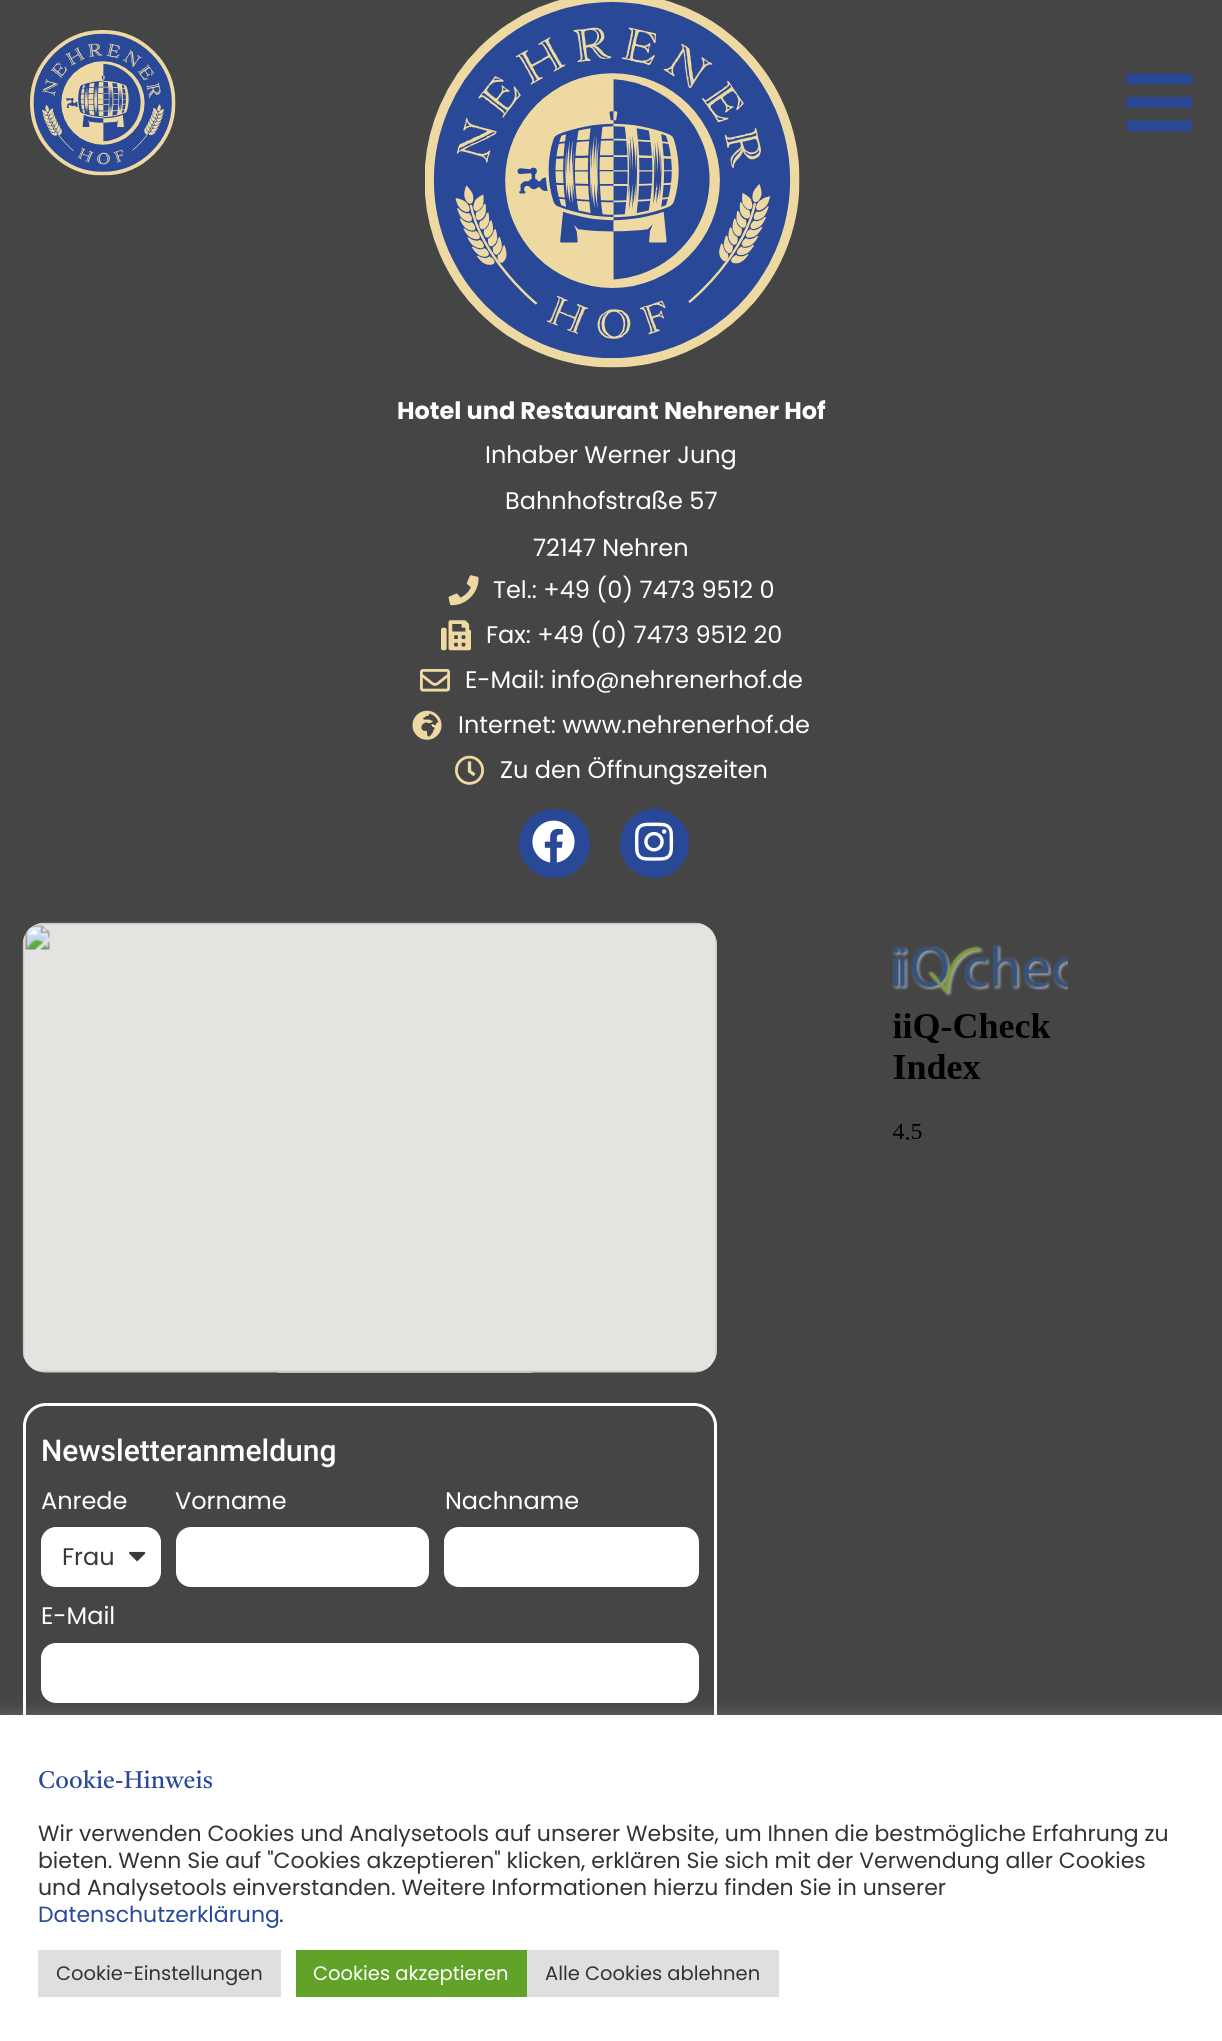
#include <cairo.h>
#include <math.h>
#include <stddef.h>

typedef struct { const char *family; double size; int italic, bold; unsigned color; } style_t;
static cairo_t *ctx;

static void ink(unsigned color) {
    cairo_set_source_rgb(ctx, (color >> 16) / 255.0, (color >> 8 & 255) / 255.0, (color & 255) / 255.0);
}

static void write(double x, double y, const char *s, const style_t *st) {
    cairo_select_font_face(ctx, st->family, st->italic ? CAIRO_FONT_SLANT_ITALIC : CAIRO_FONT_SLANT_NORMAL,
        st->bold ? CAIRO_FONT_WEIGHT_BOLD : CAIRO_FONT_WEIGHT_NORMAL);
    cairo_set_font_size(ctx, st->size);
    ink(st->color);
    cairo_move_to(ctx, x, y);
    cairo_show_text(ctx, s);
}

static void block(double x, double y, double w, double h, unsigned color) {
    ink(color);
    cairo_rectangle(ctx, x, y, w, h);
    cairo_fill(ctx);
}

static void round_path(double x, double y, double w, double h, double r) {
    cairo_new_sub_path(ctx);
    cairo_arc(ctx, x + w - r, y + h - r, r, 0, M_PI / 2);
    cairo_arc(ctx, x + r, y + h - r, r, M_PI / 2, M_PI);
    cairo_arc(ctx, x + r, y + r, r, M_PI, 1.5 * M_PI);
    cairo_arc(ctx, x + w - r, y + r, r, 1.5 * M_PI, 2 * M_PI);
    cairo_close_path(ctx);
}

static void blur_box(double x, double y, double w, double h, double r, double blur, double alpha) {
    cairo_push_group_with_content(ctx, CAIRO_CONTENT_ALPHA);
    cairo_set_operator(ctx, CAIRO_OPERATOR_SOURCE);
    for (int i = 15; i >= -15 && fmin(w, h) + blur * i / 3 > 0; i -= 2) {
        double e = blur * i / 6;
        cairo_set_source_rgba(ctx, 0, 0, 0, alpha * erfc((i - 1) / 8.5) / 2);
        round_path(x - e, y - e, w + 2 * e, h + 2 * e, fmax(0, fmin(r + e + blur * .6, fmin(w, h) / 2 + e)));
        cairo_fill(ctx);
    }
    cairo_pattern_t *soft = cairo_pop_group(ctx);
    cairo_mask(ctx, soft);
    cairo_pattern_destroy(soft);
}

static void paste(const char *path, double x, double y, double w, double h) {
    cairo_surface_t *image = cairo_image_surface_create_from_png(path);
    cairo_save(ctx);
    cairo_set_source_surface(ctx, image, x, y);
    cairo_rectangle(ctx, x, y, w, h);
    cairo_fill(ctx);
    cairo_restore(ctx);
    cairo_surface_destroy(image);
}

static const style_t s1 = {"Poppins", 24, 0, 1, 0xffffff};
static const style_t s2 = {"Poppins", 24, 0, 0, 0xffffff};
static const style_t s3 = {"Roboto Medium", 30, 0, 0, 0xffffff};
static const style_t s4 = {"Poppins", 24, 0, 0, 0x393939};
static const style_t s5 = {"Castoro", 24, 0, 0, 0x294898};
static const style_t s6 = {"Poppins", 22, 0, 0, 0x333333};
static const style_t s7 = {"Poppins", 22, 0, 0, 0x294898};
static const style_t s8 = {"Poppins", 19.5, 0, 0, 0x333333};
static const style_t s9 = {"Poppins", 19.5, 0, 0, 0xffffff};

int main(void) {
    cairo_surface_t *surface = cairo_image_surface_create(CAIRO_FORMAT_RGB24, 1222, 2041);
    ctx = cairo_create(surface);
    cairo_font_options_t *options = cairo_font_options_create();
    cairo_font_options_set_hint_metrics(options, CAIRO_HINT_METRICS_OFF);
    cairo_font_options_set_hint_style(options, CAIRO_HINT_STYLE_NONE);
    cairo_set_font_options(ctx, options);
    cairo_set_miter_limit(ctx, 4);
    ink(0x454545);
    cairo_paint(ctx);
    paste("pic1.png", 30, 30, 146, 146);
    paste("pic2.png", 1126, 73, 67, 59);
    paste("pic3.png", 425, 0, 375, 368);
    write(397, 419, "Hotel und Restaurant Nehrener Hof", &s1);
    write(485, 463, "Inhaber Werner Jung", &s2);
    write(505, 509, "Bahnhofstraße 57", &s2);
    write(533, 556, "72147 Nehren", &s2);
    paste("pic4.png", 448, 575, 31, 31);
    write(493, 598, "Tel.: +49 (0) 7473 9512 0", &s2);
    paste("pic5.png", 441, 620, 30, 31);
    write(486, 643, "Fax: +49 (0) 7473 9512 20", &s2);
    paste("pic6.png", 420, 669, 30, 23);
    write(465, 688, "E-Mail: info@nehrenerhof.de", &s2);
    paste("pic7.png", 412, 710, 30, 30);
    write(458, 733, "Internet: www.nehrenerhof.de", &s2);
    paste("pic8.png", 455, 755, 29, 30);
    write(500, 778, "Zu den Öffnungszeiten", &s2);
    ink(0x294898);
    round_path(519, 809, 71, 69, 34.5);
    cairo_fill(ctx);
    paste("pic9.png", 532, 820, 43, 43);
    cairo_arc(ctx, 654.5, 843.5, 34.5, 0, 2 * M_PI);
    cairo_fill(ctx);
    paste("pic10.png", 634, 822, 40, 39);
    paste("pic11.png", 892, 945, 176, 195);
    paste("pic12.png", 22, 922, 695, 451);
    round_path(24.5, 1404.5, 691, 390, 21.5);
    ink(0xffffff);
    cairo_set_line_width(ctx, 3);
    cairo_stroke(ctx);
    write(41, 1461, "Newsletteranmeldung", &s3);
    write(41, 1509, "Anrede", &s2);
    round_path(41, 1527, 120, 60, 15);
    cairo_fill(ctx);
    write(62, 1565, "Frau", &s4);
    paste("pic13.png", 129, 1551, 17, 11);
    write(175, 1509, "Vorname", &s2);
    round_path(176, 1527, 253, 60, 15);
    cairo_fill(ctx);
    write(445, 1509, "Nachname", &s2);
    round_path(444, 1527, 255, 60, 15);
    cairo_fill(ctx);
    write(41, 1624, "E-Mail", &s2);
    round_path(41, 1643, 658, 60, 15);
    cairo_fill(ctx);
    ink(0xacabab);
    blur_box(0, 1713, 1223, 327, 0, 7.5, 0.3);
    block(0, 1715, 1222, 326, 0xffffff);
    write(38, 1788, "Cookie-Hinweis", &s5);
    write(38, 1841, "Wir verwenden Cookies und Analysetools auf unserer Website, um Ihnen die bestmögliche Erfahrung zu", &s6);
    write(38, 1868, "bieten. Wenn Sie auf \"Cookies akzeptieren\" klicken, erklären Sie sich mit der Verwendung aller Cookies", &s6);
    write(38, 1895, "und Analysetools einverstanden. Weitere Informationen hierzu finden Sie in unserer", &s6);
    write(38, 1922, "Datenschutzerklärung", &s7);
    write(279, 1922, ".", &s6);
    block(38, 1950, 243, 47, 0xdedfe0);
    write(56, 1980, "Cookie-Einstellungen", &s8);
    block(296, 1950, 231, 47, 0x61a229);
    write(313, 1980, "Cookies akzeptieren", &s9);
    block(527, 1950, 252, 47, 0xdedfe0);
    write(545, 1980, "Alle Cookies ablehnen", &s8);
    cairo_surface_write_to_png(surface, "screenshot.png");
    cairo_font_options_destroy(options);
    cairo_destroy(ctx);
    cairo_surface_destroy(surface);
    return 0;
}
